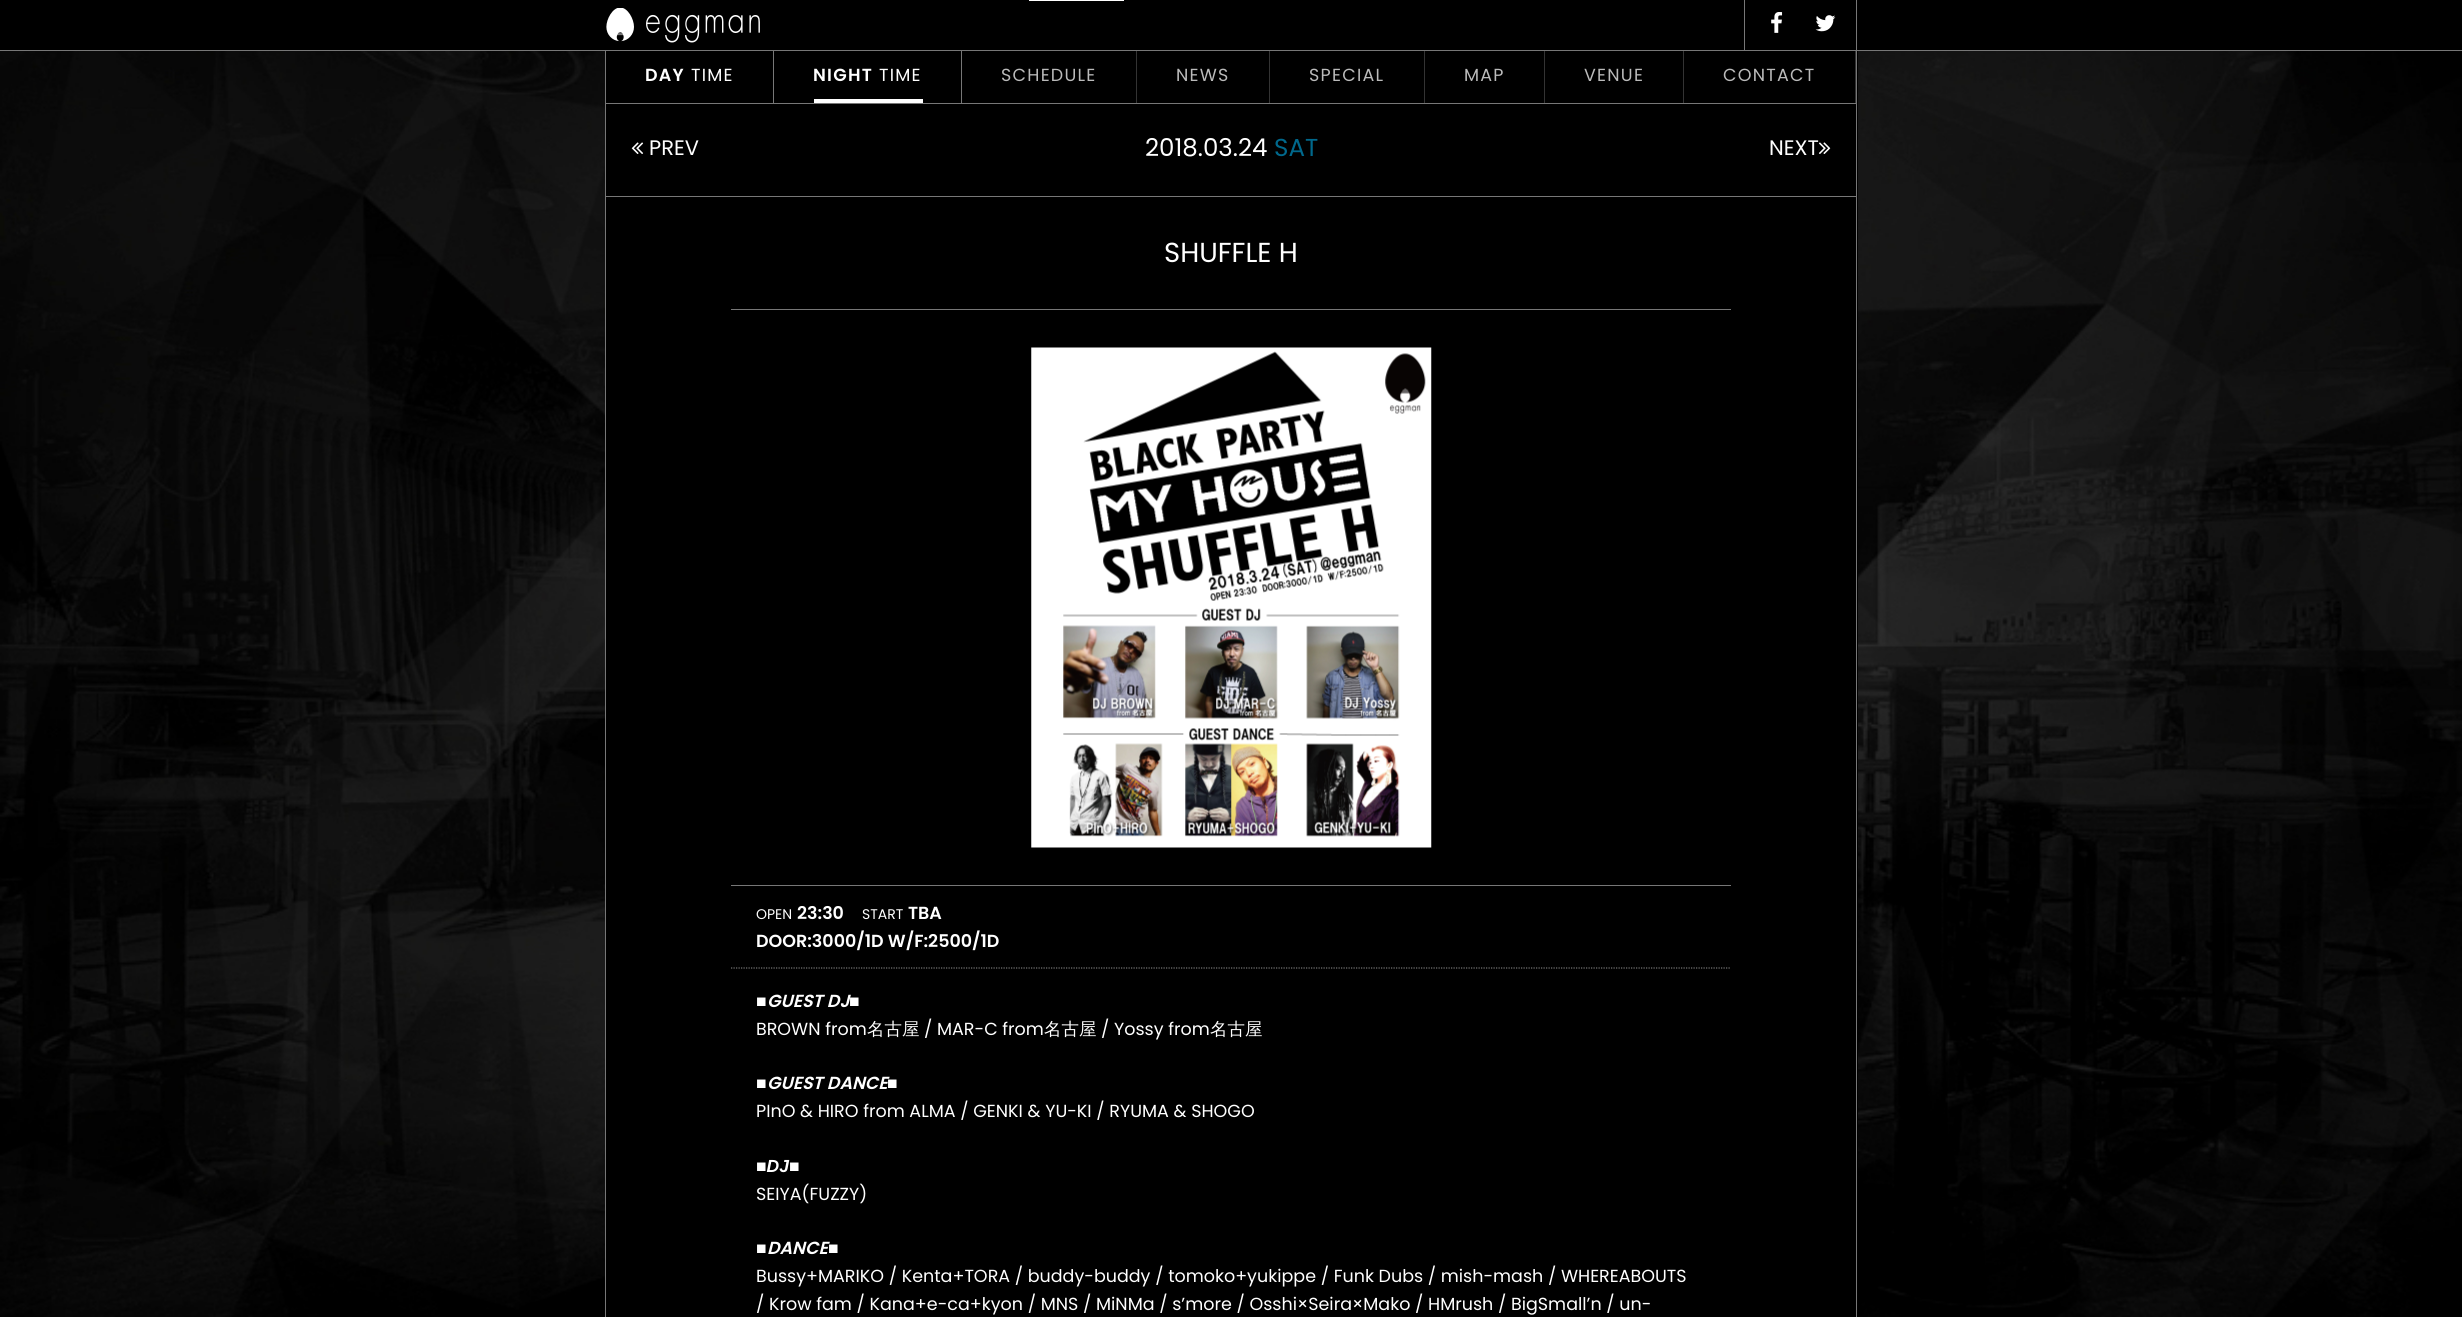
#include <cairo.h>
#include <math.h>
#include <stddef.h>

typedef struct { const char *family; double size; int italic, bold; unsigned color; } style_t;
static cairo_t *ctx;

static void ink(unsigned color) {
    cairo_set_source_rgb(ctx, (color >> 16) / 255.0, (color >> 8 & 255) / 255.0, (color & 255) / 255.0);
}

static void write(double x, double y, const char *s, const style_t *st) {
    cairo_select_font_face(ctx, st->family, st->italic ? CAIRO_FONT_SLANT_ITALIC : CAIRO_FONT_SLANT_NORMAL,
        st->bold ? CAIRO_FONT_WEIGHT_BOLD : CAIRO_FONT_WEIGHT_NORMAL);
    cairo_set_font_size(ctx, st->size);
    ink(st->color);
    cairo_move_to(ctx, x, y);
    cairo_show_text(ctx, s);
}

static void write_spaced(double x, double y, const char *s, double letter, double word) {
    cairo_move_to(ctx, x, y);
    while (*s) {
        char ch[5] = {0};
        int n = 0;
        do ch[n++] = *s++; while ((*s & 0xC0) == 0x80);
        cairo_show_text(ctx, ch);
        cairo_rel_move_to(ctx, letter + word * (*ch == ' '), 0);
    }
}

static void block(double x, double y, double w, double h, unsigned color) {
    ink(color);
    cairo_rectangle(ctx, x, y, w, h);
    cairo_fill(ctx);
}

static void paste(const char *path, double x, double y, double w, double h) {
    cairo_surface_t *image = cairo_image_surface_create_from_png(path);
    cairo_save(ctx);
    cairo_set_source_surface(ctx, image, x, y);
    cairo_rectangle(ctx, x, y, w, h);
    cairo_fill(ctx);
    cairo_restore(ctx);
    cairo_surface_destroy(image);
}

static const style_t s1 = {"Poppins", 21, 0, 0, 0xffffff};
static const style_t s2 = {"Poppins", 24.5, 0, 0, 0xffffff};
static const style_t s3 = {"Poppins", 24.5, 0, 0, 0x00688c};
static const style_t s4 = {"Poppins", 27.5, 0, 0, 0xffffff};
static const style_t s5 = {"Poppins", 14, 0, 0, 0xffffff};
static const style_t s6 = {"Poppins SemiBold", 17.5, 0, 0, 0xffffff};
static const style_t s7 = {"Liberation Sans", 17.5, 1, 1, 0xffffff};
static const style_t s8 = {"Poppins SemiBold", 17.5, 1, 0, 0xffffff};
static const style_t s9 = {"Poppins", 17.5, 0, 0, 0xffffff};
static const style_t s10 = {"WenQuanYi Zen Hei Medium", 17.5, 0, 0, 0xffffff};

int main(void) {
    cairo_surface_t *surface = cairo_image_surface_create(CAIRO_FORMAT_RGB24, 2462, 1317);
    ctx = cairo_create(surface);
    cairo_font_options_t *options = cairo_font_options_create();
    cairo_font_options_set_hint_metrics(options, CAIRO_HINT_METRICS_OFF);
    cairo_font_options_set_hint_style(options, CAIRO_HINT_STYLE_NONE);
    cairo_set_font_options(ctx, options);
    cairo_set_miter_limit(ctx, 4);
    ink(0xffffff);
    cairo_paint(ctx);
    paste("pic1.png", 0, 51, 2462, 1266);
    block(0, 0, 2462, 50, 0x000000);
    block(0, 50, 2462, 1, 0x777777);
    paste("pic2.png", 606, 8, 154, 35);
    block(1856, 0, 1, 50, 0x777777);
    block(1029, 0, 95, 1, 0xffffff);
    block(1744, 0, 1, 50, 0x777777);
    paste("pic3.png", 1771, 12, 12, 21);
    paste("pic4.png", 1815, 15, 21, 17);
    block(606, 51, 1252, 1266, 0x000000);
    block(1856, 51, 1, 1266, 0x777777);
    block(605, 51, 1, 1266, 0x777777);
    block(606, 103, 1250, 1, 0x777777);
    block(773, 51, 1, 52, 0x777777);
    cairo_select_font_face(ctx, "Poppins SemiBold", CAIRO_FONT_SLANT_NORMAL, CAIRO_FONT_WEIGHT_NORMAL);
    cairo_set_font_size(ctx, 17.5);
    ink(0xffffff);
    write_spaced(645, 81, "DAY", 1.25, 0);
    cairo_select_font_face(ctx, "Poppins", CAIRO_FONT_SLANT_NORMAL, CAIRO_FONT_WEIGHT_NORMAL);
    write_spaced(691, 81, "TIME", 1.25, 0);
    block(961, 51, 1, 52, 0x777777);
    block(814, 99, 109, 4, 0xffffff);
    cairo_select_font_face(ctx, "Poppins SemiBold", CAIRO_FONT_SLANT_NORMAL, CAIRO_FONT_WEIGHT_NORMAL);
    write_spaced(813, 81, "NIGHT", 1.25, 0);
    cairo_select_font_face(ctx, "Poppins", CAIRO_FONT_SLANT_NORMAL, CAIRO_FONT_WEIGHT_NORMAL);
    write_spaced(879, 81, "TIME", 1.25, 0);
    block(1136, 51, 1, 52, 0x333333);
    ink(0xbbbbbb);
    write_spaced(1001, 81, "SCHEDULE", 1.25, 0);
    block(1269, 51, 1, 52, 0x333333);
    ink(0xbbbbbb);
    write_spaced(1176, 81, "NEWS", 1.25, 0);
    block(1424, 51, 1, 52, 0x333333);
    ink(0xbbbbbb);
    write_spaced(1309, 81, "SPECIAL", 1.25, 0);
    block(1544, 51, 1, 52, 0x333333);
    ink(0xbbbbbb);
    write_spaced(1464, 81, "MAP", 1.25, 0);
    block(1683, 51, 1, 52, 0x333333);
    ink(0xbbbbbb);
    write_spaced(1584, 81, "VENUE", 1.25, 0);
    block(1855, 51, 1, 52, 0x333333);
    ink(0xbbbbbb);
    write_spaced(1723, 81, "CONTACT", 1.25, 0);
    block(606, 196, 1250, 1, 0x777777);
    paste("pic5.png", 631, 142, 13, 12);
    write(649, 155, "PREV", &s1);
    write(1145, 156, "2018.03.24", &s2);
    write(1274, 156, "SAT", &s3);
    write(1769, 155, "NEXT", &s1);
    paste("pic6.png", 1818, 142, 13, 12);
    block(731, 309, 1000, 1, 0x777777);
    write(1164, 262, "SHUFFLE H", &s4);
    block(731, 885, 1000, 1, 0x777777);
    paste("pic7.png", 1031, 347, 401, 501);
    cairo_new_path(ctx);
    cairo_move_to(ctx, 731, 968);
    cairo_line_to(ctx, 1731, 968);
    cairo_set_line_width(ctx, 1.2);
    cairo_set_dash(ctx, (double[]){1.25, 1.25}, 2, 0);
    cairo_stroke(ctx);
    write(756, 919, "OPEN", &s5);
    write(797, 919, "23:30", &s6);
    write(862, 919, "START", &s5);
    write(908, 919, "TBA", &s6);
    write(756, 947, "DOOR:3000/1D W/F:2500/1D", &s6);
    write(756, 1007, "■", &s7);
    write(767, 1007, "GUEST DJ", &s8);
    write(849, 1007, "■", &s7);
    write(756, 1035, "BROWN from", &s9);
    write(867, 1035, "名古屋", &s10);
    write(924, 1035, "/ MAR-C from", &s9);
    write(1044, 1035, "名古屋", &s10);
    write(1101, 1035, "/ Yossy from", &s9);
    write(1210, 1035, "名古屋", &s10);
    write(756, 1089, "■", &s7);
    write(767, 1089, "GUEST DANCE", &s8);
    write(887, 1089, "■", &s7);
    write(756, 1117, "PInO & HIRO from ALMA / GENKI & YU-KI / RYUMA & SHOGO", &s9);
    write(756, 1172, "■DJ■", &s7);
    write(756, 1200, "SEIYA(FUZZY)", &s9);
    write(756, 1254, "■", &s7);
    write(767, 1254, "DANCE", &s8);
    write(828, 1254, "■", &s7);
    write(756, 1282, "Bussy+MARIKO / Kenta+TORA / buddy-buddy / tomoko+yukippe / Funk Dubs / mish-mash / WHEREABOUTS", &s9);
    write(756, 1310, "/ Krow fam / Kana+e-ca+kyon / MNS / MiNMa / s’more / Osshi×Seira×Mako / HMrush / BigSmall’n / un-", &s9);
    cairo_surface_write_to_png(surface, "screenshot.png");
    cairo_font_options_destroy(options);
    cairo_destroy(ctx);
    cairo_surface_destroy(surface);
    return 0;
}
